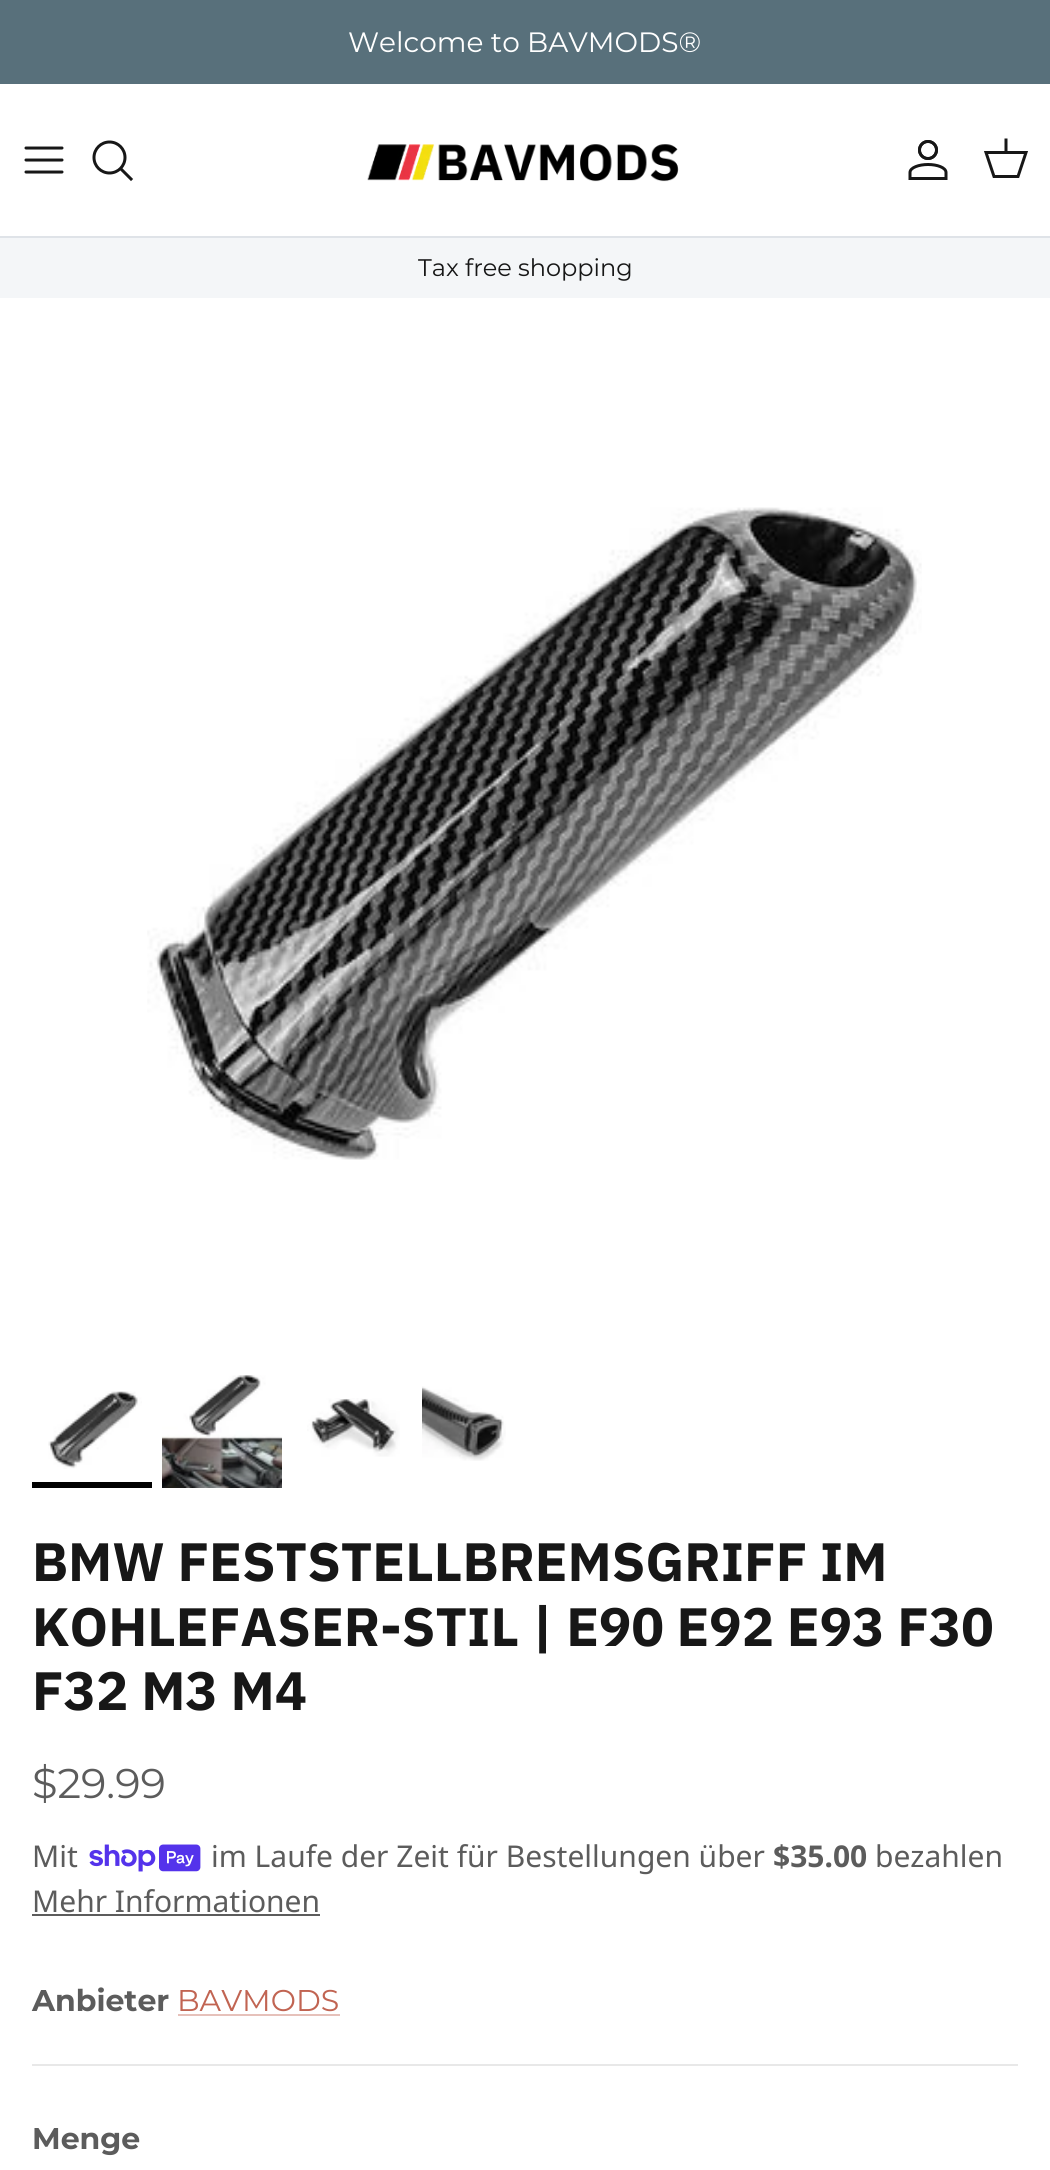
#include <cairo.h>
#include <math.h>
#include <stddef.h>

typedef struct { const char *family; double size; int italic, bold; unsigned color; } style_t;
static cairo_t *ctx;

static void ink(unsigned color) {
    cairo_set_source_rgb(ctx, (color >> 16) / 255.0, (color >> 8 & 255) / 255.0, (color & 255) / 255.0);
}

static void write(double x, double y, const char *s, const style_t *st) {
    cairo_select_font_face(ctx, st->family, st->italic ? CAIRO_FONT_SLANT_ITALIC : CAIRO_FONT_SLANT_NORMAL,
        st->bold ? CAIRO_FONT_WEIGHT_BOLD : CAIRO_FONT_WEIGHT_NORMAL);
    cairo_set_font_size(ctx, st->size);
    ink(st->color);
    cairo_move_to(ctx, x, y);
    cairo_show_text(ctx, s);
}

static void block(double x, double y, double w, double h, unsigned color) {
    ink(color);
    cairo_rectangle(ctx, x, y, w, h);
    cairo_fill(ctx);
}

static void paste(const char *path, double x, double y, double w, double h) {
    cairo_surface_t *image = cairo_image_surface_create_from_png(path);
    cairo_save(ctx);
    cairo_set_source_surface(ctx, image, x, y);
    cairo_rectangle(ctx, x, y, w, h);
    cairo_fill(ctx);
    cairo_restore(ctx);
    cairo_surface_destroy(image);
}

static const style_t s1 = {"Montserrat Thin", 28, 0, 0, 0xffffff};
static const style_t s2 = {"Montserrat Thin", 24, 0, 0, 0x171717};
static const style_t s3 = {"IBM Plex Sans", 54, 0, 1, 0x171717};
static const style_t s4 = {"Montserrat Thin", 41.5, 0, 0, 0x5c5c5c};
static const style_t s5 = {"Noto Sans", 30, 0, 0, 0x5c5c5c};
static const style_t s6 = {"Noto Sans", 30, 0, 1, 0x5c5c5c};
static const style_t s7 = {"Montserrat", 30, 0, 1, 0x5c5c5c};
static const style_t s8 = {"Montserrat Thin", 30, 0, 0, 0xc16452};

int main(void) {
    cairo_surface_t *surface = cairo_image_surface_create(CAIRO_FORMAT_RGB24, 1050, 2170);
    ctx = cairo_create(surface);
    cairo_font_options_t *options = cairo_font_options_create();
    cairo_font_options_set_hint_metrics(options, CAIRO_HINT_METRICS_OFF);
    cairo_font_options_set_hint_style(options, CAIRO_HINT_STYLE_NONE);
    cairo_set_font_options(ctx, options);
    cairo_set_miter_limit(ctx, 4);
    ink(0xffffff);
    cairo_paint(ctx);
    block(0, 0, 1050, 84, 0x58707b);
    write(348, 52, "Welcome to BAVMODS®", &s1);
    block(0, 236, 1050, 2, 0xdfe3e8);
    cairo_new_path(ctx);
    cairo_move_to(ctx, 26, 160);
    cairo_line_to(ctx, 62, 160);
    cairo_move_to(ctx, 26, 148);
    cairo_line_to(ctx, 62, 148);
    cairo_move_to(ctx, 26, 172);
    cairo_line_to(ctx, 62, 172);
    ink(0x171717);
    cairo_set_line_width(ctx, 3);
    cairo_set_line_cap(ctx, CAIRO_LINE_CAP_ROUND);
    cairo_set_line_join(ctx, CAIRO_LINE_JOIN_ROUND);
    cairo_stroke(ctx);
    cairo_arc(ctx, 109.5, 157.5, 15.5, 0, 2 * M_PI);
    cairo_set_line_cap(ctx, CAIRO_LINE_CAP_BUTT);
    cairo_set_line_join(ctx, CAIRO_LINE_JOIN_MITER);
    cairo_stroke(ctx);
    cairo_new_path(ctx);
    cairo_move_to(ctx, 122, 170);
    cairo_line_to(ctx, 131, 179);
    cairo_set_line_cap(ctx, CAIRO_LINE_CAP_SQUARE);
    cairo_stroke(ctx);
    paste("pic1.png", 367, 144, 312, 38);
    paste("pic2.png", 908, 140, 40, 40);
    cairo_new_path(ctx);
    cairo_move_to(ctx, 986, 152.5);
    cairo_line_to(ctx, 1026, 152.5);
    cairo_line_to(ctx, 1018, 176.5);
    cairo_line_to(ctx, 994, 176.5);
    cairo_close_path(ctx);
    cairo_set_line_cap(ctx, CAIRO_LINE_CAP_BUTT);
    cairo_stroke(ctx);
    cairo_new_path(ctx);
    cairo_move_to(ctx, 1006, 152);
    cairo_line_to(ctx, 1006, 140);
    cairo_set_line_cap(ctx, CAIRO_LINE_CAP_SQUARE);
    cairo_stroke(ctx);
    block(0, 238, 1050, 60, 0xf4f6f8);
    write(418, 276, "Tax free shopping", &s2);
    paste("pic3.png", 147, 507, 775, 653);
    paste("pic4.png", 48, 1391, 94, 78);
    block(32, 1482, 120, 6, 0x000000);
    paste("pic5.png", 162, 1375, 120, 113);
    paste("pic6.png", 307, 1398, 93, 59);
    paste("pic7.png", 422, 1386, 84, 75);
    write(32, 1581, "BMW FESTSTELLBREMSGRIFF IM", &s3);
    write(32, 1646, "KOHLEFASER-STIL | E90 E92 E93 F30", &s3);
    write(32, 1710, "F32 M3 M4", &s3);
    write(32, 1798, "$29.99", &s4);
    write(32, 1867, "Mit", &s5);
    paste("pic8.png", 89, 1844, 112, 28);
    write(211, 1867, "im Laufe der Zeit für Bestellungen über", &s5);
    write(773, 1867, "$35.00", &s6);
    write(875, 1867, "bezahlen", &s5);
    write(32, 1912, "Mehr Informationen", &s5);
    block(32, 1914, 288, 2, 0x5c5c5c);
    write(32, 2011, "Anbieter", &s7);
    write(177, 2011, "BAVMODS", &s8);
    block(178, 2014, 162, 2, 0xe6c1ba);
    block(32, 2064, 986, 2, 0xe8e8e8);
    write(32, 2149, "Menge", &s7);
    cairo_surface_write_to_png(surface, "screenshot.png");
    cairo_font_options_destroy(options);
    cairo_destroy(ctx);
    cairo_surface_destroy(surface);
    return 0;
}
